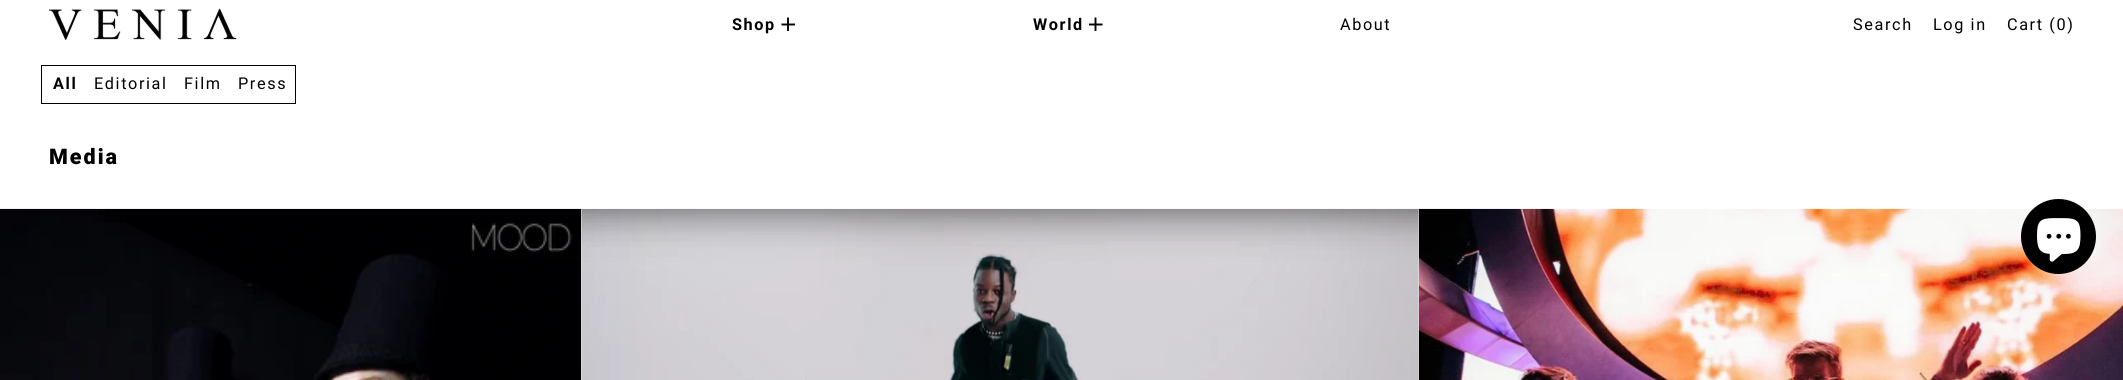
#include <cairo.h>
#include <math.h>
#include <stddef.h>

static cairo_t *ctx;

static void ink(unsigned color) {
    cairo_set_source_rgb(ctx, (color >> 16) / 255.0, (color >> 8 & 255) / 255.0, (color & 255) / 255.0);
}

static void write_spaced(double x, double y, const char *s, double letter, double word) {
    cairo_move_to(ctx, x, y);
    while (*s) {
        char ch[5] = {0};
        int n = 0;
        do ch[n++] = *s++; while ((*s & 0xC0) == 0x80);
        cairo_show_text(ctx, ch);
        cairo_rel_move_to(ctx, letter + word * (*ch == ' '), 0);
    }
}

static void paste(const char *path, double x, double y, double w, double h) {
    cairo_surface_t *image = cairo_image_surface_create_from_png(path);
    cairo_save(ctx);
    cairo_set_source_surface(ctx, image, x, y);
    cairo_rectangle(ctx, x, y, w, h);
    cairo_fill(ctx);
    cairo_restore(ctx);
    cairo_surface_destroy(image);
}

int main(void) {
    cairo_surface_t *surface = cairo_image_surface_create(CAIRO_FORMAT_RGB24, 2123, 380);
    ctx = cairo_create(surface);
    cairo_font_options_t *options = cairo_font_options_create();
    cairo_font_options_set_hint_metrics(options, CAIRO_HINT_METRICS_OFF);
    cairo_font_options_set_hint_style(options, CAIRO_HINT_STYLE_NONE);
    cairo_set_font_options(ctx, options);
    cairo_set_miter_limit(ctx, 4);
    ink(0xffffff);
    cairo_paint(ctx);
    paste("pic1.png", 48, 8, 189, 32);
    cairo_select_font_face(ctx, "Roboto", CAIRO_FONT_SLANT_NORMAL, CAIRO_FONT_WEIGHT_BOLD);
    cairo_set_font_size(ctx, 16.25);
    ink(0x000000);
    write_spaced(732, 30, "Shop", 1.6, 0);
    cairo_new_path(ctx);
    cairo_move_to(ctx, 781.5, 24.5);
    cairo_line_to(ctx, 795, 24.5);
    cairo_move_to(ctx, 788, 17.5);
    cairo_line_to(ctx, 788, 31);
    cairo_set_line_width(ctx, 1.9);
    cairo_set_line_join(ctx, CAIRO_LINE_JOIN_ROUND);
    cairo_stroke(ctx);
    write_spaced(1033, 30, "World", 1.6, 0);
    cairo_new_path(ctx);
    cairo_move_to(ctx, 1089, 24.5);
    cairo_line_to(ctx, 1102.5, 24.5);
    cairo_move_to(ctx, 1095.5, 17.5);
    cairo_line_to(ctx, 1095.5, 31);
    cairo_stroke(ctx);
    cairo_select_font_face(ctx, "Roboto", CAIRO_FONT_SLANT_NORMAL, CAIRO_FONT_WEIGHT_NORMAL);
    write_spaced(1340, 30, "About", 1.6, 0);
    write_spaced(1853, 30, "Search", 1.6, 0);
    write_spaced(1933, 30, "Log in", 1.6, 0);
    write_spaced(2007, 30, "Cart (0)", 1.6, 0);
    cairo_rectangle(ctx, 41.5, 65.5, 254, 38);
    cairo_set_line_width(ctx, 1);
    cairo_set_line_join(ctx, CAIRO_LINE_JOIN_MITER);
    cairo_stroke(ctx);
    cairo_select_font_face(ctx, "Roboto", CAIRO_FONT_SLANT_NORMAL, CAIRO_FONT_WEIGHT_BOLD);
    write_spaced(53, 89, "All", 1.6, 0);
    cairo_select_font_face(ctx, "Roboto", CAIRO_FONT_SLANT_NORMAL, CAIRO_FONT_WEIGHT_NORMAL);
    write_spaced(94, 89, "Editorial", 1.6, 0);
    write_spaced(184, 89, "Film", 1.6, 0);
    write_spaced(238, 89, "Press", 1.6, 0);
    cairo_select_font_face(ctx, "Roboto Black", CAIRO_FONT_SLANT_NORMAL, CAIRO_FONT_WEIGHT_NORMAL);
    cairo_set_font_size(ctx, 21.5);
    write_spaced(49, 164, "Media", 2, 0);
    paste("pic2.png", 0, 208, 582, 172);
    paste("pic3.png", 581, 208, 838, 172);
    paste("pic4.png", 1418, 208, 705, 172);
    cairo_arc(ctx, 2058.5, 236.5, 37.5, 0, 2 * M_PI);
    cairo_fill(ctx);
    paste("pic5.png", 2037, 218, 44, 44);
    cairo_surface_write_to_png(surface, "screenshot.png");
    cairo_font_options_destroy(options);
    cairo_destroy(ctx);
    cairo_surface_destroy(surface);
    return 0;
}
